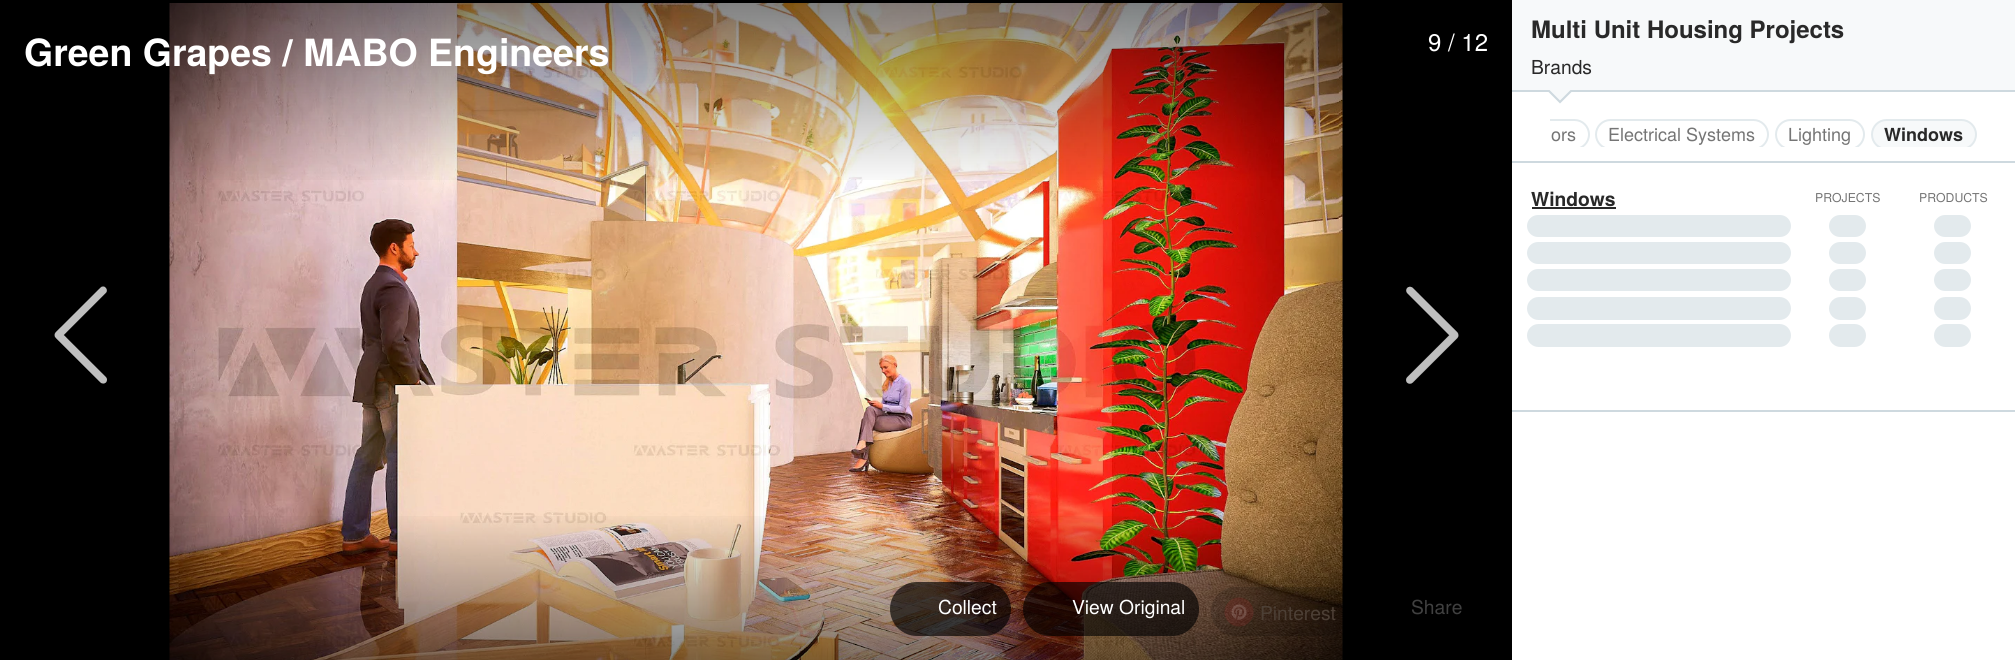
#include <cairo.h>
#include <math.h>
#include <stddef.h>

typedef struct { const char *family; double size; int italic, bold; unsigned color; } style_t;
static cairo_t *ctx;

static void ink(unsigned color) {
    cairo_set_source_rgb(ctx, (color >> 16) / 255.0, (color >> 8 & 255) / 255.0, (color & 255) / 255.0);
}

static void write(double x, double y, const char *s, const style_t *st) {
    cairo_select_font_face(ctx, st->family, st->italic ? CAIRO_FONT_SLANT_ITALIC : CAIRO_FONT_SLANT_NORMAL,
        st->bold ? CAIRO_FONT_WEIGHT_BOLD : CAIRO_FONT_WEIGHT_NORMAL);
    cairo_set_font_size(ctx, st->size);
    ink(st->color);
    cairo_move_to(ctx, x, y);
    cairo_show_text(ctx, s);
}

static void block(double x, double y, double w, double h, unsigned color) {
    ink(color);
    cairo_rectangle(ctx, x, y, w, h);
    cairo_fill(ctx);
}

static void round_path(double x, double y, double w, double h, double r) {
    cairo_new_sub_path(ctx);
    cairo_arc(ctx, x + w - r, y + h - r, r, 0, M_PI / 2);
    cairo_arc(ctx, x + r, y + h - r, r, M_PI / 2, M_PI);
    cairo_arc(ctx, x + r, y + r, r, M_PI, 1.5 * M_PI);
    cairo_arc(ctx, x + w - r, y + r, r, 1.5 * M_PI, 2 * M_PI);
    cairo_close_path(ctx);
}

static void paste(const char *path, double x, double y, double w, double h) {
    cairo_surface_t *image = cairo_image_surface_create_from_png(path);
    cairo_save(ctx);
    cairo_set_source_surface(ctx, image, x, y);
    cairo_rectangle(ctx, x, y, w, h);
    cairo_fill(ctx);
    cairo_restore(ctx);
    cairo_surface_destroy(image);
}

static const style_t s1 = {"TeX Gyre Heros", 24, 0, 0, 0xffffff};
static const style_t s2 = {"TeX Gyre Heros", 37.5, 0, 1, 0xffffff};
static const style_t s3 = {"TeX Gyre Heros", 19.25, 0, 0, 0xffffff};
static const style_t s4 = {"TeX Gyre Heros", 19.25, 0, 0, 0x4c3f35};
static const style_t s5 = {"TeX Gyre Heros", 19.25, 0, 0, 0x404040};
static const style_t s6 = {"TeX Gyre Heros", 24, 0, 1, 0x292929};
static const style_t s7 = {"TeX Gyre Heros", 19.25, 0, 0, 0x292929};
static const style_t s8 = {"TeX Gyre Heros", 18, 0, 0, 0x757575};
static const style_t s9 = {"TeX Gyre Heros", 18, 0, 1, 0x292929};
static const style_t s10 = {"TeX Gyre Heros", 19.25, 0, 1, 0x292929};
static const style_t s11 = {"TeX Gyre Heros", 12.25, 0, 0, 0x757575};

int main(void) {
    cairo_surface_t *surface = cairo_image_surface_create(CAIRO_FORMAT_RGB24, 2015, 660);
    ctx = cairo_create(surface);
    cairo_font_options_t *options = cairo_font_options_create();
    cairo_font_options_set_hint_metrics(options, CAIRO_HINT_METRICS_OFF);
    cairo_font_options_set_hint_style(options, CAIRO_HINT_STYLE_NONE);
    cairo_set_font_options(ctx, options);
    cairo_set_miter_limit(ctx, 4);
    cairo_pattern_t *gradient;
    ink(0xffffff);
    cairo_paint(ctx);
    block(0, 0, 1512, 660, 0x000000);
    paste("pic1.png", 169, 3, 1174, 657);
    gradient = cairo_pattern_create_linear(756, 0, 756, 188);
    cairo_pattern_add_color_stop_rgba(gradient, 0, 0, 0, 0, 0.5);
    cairo_pattern_add_color_stop_rgba(gradient, 1, 0, 0, 0, 0);
    cairo_set_source(ctx, gradient);
    cairo_pattern_destroy(gradient);
    cairo_rectangle(ctx, 169, 3, 1174, 177);
    cairo_fill(ctx);
    write(1428, 51, "9 / 12", &s1);
    write(24, 66, "Green Grapes / MABO Engineers", &s2);
    paste("pic2.png", 54, 286, 53, 98);
    paste("pic3.png", 1406, 286, 53, 98);
    gradient = cairo_pattern_create_linear(756, 660, 756, 510);
    cairo_pattern_add_color_stop_rgba(gradient, 0, 0, 0, 0, 0.5);
    cairo_pattern_add_color_stop_rgba(gradient, 1, 0, 0, 0, 0);
    cairo_set_source(ctx, gradient);
    cairo_pattern_destroy(gradient);
    cairo_rectangle(ctx, 169, 516, 1174, 144);
    cairo_fill(ctx);
    cairo_set_source_rgba(ctx, 0, 0, 0, 0.65);
    round_path(890, 582, 121, 54, 27);
    cairo_fill(ctx);
    write(938, 614, "Collect", &s3);
    cairo_set_source_rgba(ctx, 0, 0, 0, 0.65);
    round_path(1023, 582, 176, 54, 27);
    cairo_fill(ctx);
    write(1072, 614, "View Original", &s3);
    cairo_set_source_rgba(ctx, 0, 0, 0, 0.16);
    round_path(1211, 587, 139, 49, 24.5);
    cairo_fill(ctx);
    paste("pic4.png", 1224, 597, 30, 30);
    write(1260, 620, "Pinterest", &s4);
    write(1411, 614, "Share", &s5);
    block(1512, 0, 503, 90, 0xf7f9fa);
    block(1512, 90, 503, 2, 0xced9df);
    write(1531, 38, "Multi Unit Housing Projects", &s6);
    write(1531, 74, "Brands", &s7);
    ink(0xced9df);
    cairo_new_path(ctx);
    cairo_move_to(ctx, 1546.5, 90);
    cairo_line_to(ctx, 1573.5, 90);
    cairo_line_to(ctx, 1560, 103.5);
    cairo_close_path(ctx);
    cairo_fill(ctx);
    ink(0xf7f9fa);
    cairo_new_path(ctx);
    cairo_move_to(ctx, 1548, 88.5);
    cairo_line_to(ctx, 1572, 88.5);
    cairo_line_to(ctx, 1560, 100.5);
    cairo_close_path(ctx);
    cairo_fill(ctx);
    cairo_save(ctx);
    cairo_rectangle(ctx, 1550, 110, 429, 37);
    cairo_clip(ctx);
    round_path(1515, 120, 74, 29, 14.5);
    ink(0xe3eaed);
    cairo_stroke(ctx);
    cairo_restore(ctx);
    write(1551, 141, "ors", &s8);
    cairo_save(ctx);
    cairo_rectangle(ctx, 1550, 110, 429, 37);
    cairo_clip(ctx);
    round_path(1596, 120, 172, 29, 14.5);
    ink(0xe3eaed);
    cairo_stroke(ctx);
    cairo_restore(ctx);
    write(1608, 141, "Electrical Systems", &s8);
    cairo_save(ctx);
    cairo_rectangle(ctx, 1550, 110, 429, 37);
    cairo_clip(ctx);
    round_path(1776, 120, 88, 29, 14.5);
    ink(0xe3eaed);
    cairo_stroke(ctx);
    cairo_restore(ctx);
    write(1788, 141, "Lighting", &s8);
    cairo_save(ctx);
    cairo_rectangle(ctx, 1550, 110, 429, 37);
    cairo_clip(ctx);
    ink(0xf7f9fa);
    round_path(1872, 120, 104, 29, 14.5);
    cairo_fill_preserve(ctx);
    ink(0xe3eaed);
    cairo_stroke(ctx);
    cairo_restore(ctx);
    write(1884, 141, "Windows", &s9);
    block(1512, 161, 503, 2, 0xced9df);
    write(1531, 206, "Windows", &s10);
    block(1532, 207, 84, 2, 0x292929);
    write(1815, 202, "PROJECTS", &s11);
    write(1919, 202, "PRODUCTS", &s11);
    ink(0xe3eaed);
    round_path(1527, 215, 264, 22, 11);
    cairo_fill(ctx);
    round_path(1829, 215, 37, 22, 11);
    cairo_fill(ctx);
    round_path(1934, 215, 37, 22, 11);
    cairo_fill(ctx);
    round_path(1527, 242, 264, 22, 11);
    cairo_fill(ctx);
    round_path(1829, 242, 37, 22, 11);
    cairo_fill(ctx);
    round_path(1934, 242, 37, 22, 11);
    cairo_fill(ctx);
    round_path(1527, 269, 264, 22, 11);
    cairo_fill(ctx);
    round_path(1829, 269, 37, 22, 11);
    cairo_fill(ctx);
    round_path(1934, 269, 37, 22, 11);
    cairo_fill(ctx);
    round_path(1527, 297, 264, 23, 11.5);
    cairo_fill(ctx);
    round_path(1829, 297, 37, 23, 11.5);
    cairo_fill(ctx);
    round_path(1934, 297, 37, 23, 11.5);
    cairo_fill(ctx);
    round_path(1527, 324, 264, 23, 11.5);
    cairo_fill(ctx);
    round_path(1829, 324, 37, 23, 11.5);
    cairo_fill(ctx);
    round_path(1934, 324, 37, 23, 11.5);
    cairo_fill(ctx);
    block(1512, 410, 503, 2, 0xced9df);
    cairo_surface_write_to_png(surface, "screenshot.png");
    cairo_font_options_destroy(options);
    cairo_destroy(ctx);
    cairo_surface_destroy(surface);
    return 0;
}
